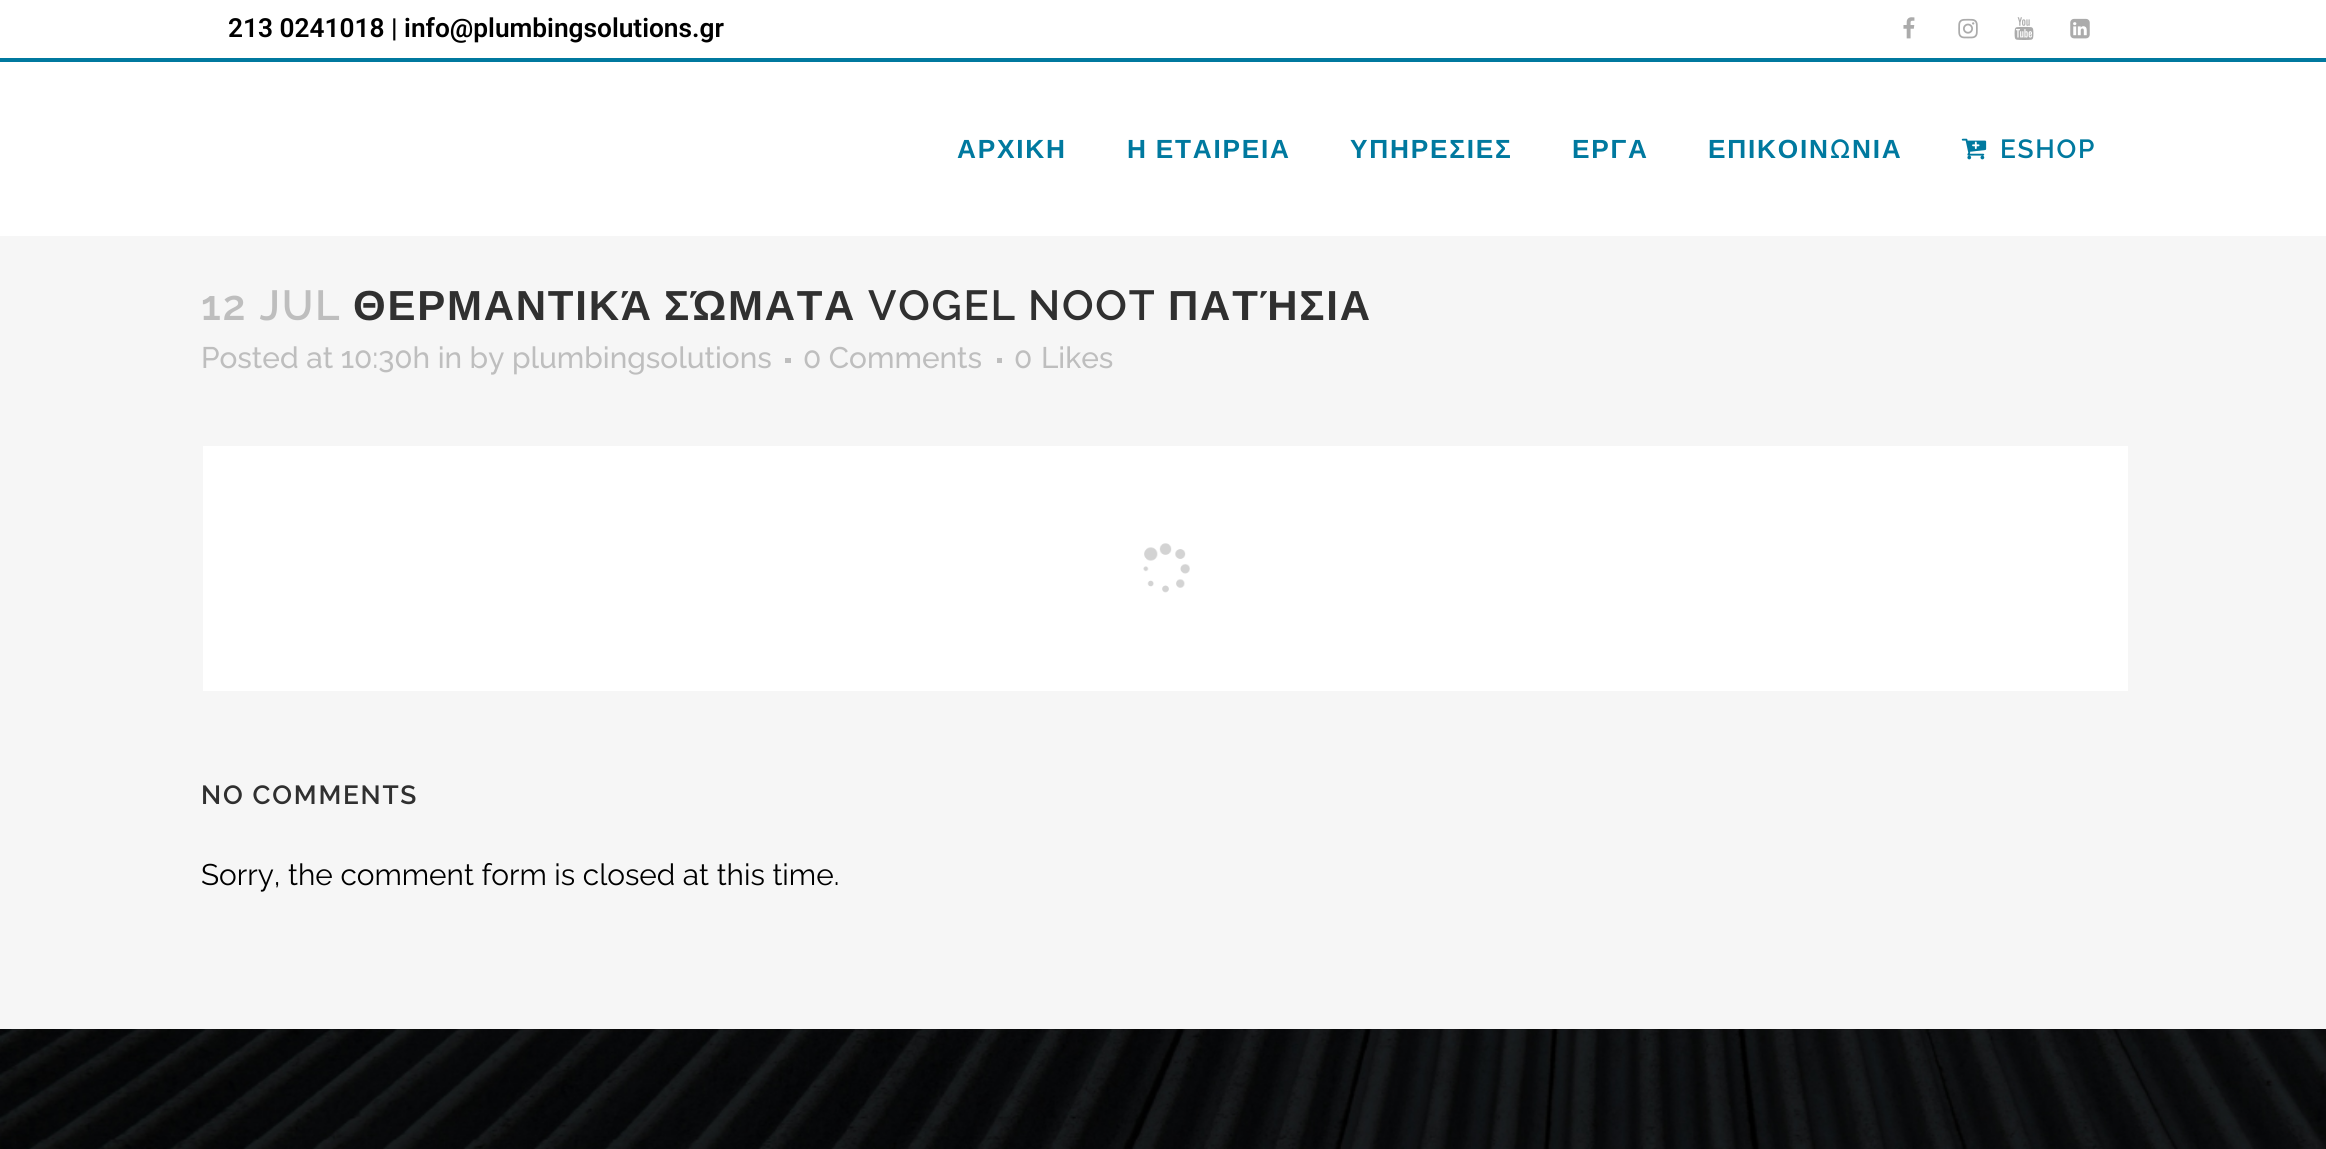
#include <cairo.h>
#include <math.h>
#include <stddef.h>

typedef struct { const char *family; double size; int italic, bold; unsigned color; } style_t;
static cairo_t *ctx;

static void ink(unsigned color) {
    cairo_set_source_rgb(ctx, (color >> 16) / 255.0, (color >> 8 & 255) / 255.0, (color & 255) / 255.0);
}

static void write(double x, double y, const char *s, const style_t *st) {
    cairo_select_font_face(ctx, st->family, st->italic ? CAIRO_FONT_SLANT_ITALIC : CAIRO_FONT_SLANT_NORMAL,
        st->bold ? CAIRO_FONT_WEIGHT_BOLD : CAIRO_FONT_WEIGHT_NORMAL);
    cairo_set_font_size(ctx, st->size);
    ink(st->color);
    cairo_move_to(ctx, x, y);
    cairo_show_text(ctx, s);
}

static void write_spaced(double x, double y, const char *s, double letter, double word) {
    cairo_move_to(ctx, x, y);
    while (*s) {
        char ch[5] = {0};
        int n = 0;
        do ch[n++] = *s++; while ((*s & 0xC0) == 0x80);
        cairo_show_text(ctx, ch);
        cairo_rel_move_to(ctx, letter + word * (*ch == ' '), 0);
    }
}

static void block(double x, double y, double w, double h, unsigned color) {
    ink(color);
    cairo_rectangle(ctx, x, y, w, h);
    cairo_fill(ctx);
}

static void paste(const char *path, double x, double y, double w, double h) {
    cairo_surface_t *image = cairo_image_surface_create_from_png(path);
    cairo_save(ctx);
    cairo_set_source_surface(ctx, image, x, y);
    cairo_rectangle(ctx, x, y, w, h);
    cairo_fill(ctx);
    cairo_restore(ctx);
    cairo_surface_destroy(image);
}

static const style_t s1 = {"Roboto SemiBold", 26.25, 0, 0, 0x000000};
static const style_t s2 = {"Raleway Medium", 29.75, 0, 0, 0xbebebe};
static const style_t s3 = {"Raleway", 29.75, 0, 0, 0x000000};

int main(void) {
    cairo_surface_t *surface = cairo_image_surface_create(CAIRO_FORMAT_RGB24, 2326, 1149);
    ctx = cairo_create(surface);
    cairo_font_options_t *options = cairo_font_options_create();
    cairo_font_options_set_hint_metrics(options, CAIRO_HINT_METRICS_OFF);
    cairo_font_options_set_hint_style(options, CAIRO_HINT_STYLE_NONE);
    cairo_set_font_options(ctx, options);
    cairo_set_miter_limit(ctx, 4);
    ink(0xf6f6f6);
    cairo_paint(ctx);
    block(0, 0, 2326, 58, 0xffffff);
    block(0, 58, 2326, 4, 0x00799f);
    write(228, 37, "213 0241018 | info@plumbingsolutions.gr", &s1);
    paste("pic1.png", 1903, 17, 12, 22);
    paste("pic2.png", 1958, 18, 20, 21);
    paste("pic3.png", 2014, 17, 20, 23);
    paste("pic4.png", 2070, 18, 20, 21);
    block(0, 62, 2326, 174, 0xffffff);
    cairo_select_font_face(ctx, "Liberation Sans", CAIRO_FONT_SLANT_NORMAL, CAIRO_FONT_WEIGHT_BOLD);
    ink(0x00799f);
    write_spaced(957, 158, "ΑΡΧΙΚΗ", 1.75, 0);
    write_spaced(1127, 158, "Η ΕΤΑΙΡΕΙΑ", 1.75, -1);
    write_spaced(1350, 158, "ΥΠΗΡΕΣΙΕΣ", 1.75, 0);
    write_spaced(1572, 158, "ΕΡΓΑ", 1.75, 0);
    write_spaced(1708, 158, "ΕΠΙΚΟΙΝ", 1.75, 0);
    cairo_select_font_face(ctx, "Raleway SemiBold", CAIRO_FONT_SLANT_NORMAL, CAIRO_FONT_WEIGHT_NORMAL);
    write_spaced(1830, 158, "Ω", 1.75, 0);
    cairo_select_font_face(ctx, "Liberation Sans", CAIRO_FONT_SLANT_NORMAL, CAIRO_FONT_WEIGHT_BOLD);
    write_spaced(1852, 158, "ΝΙΑ", 1.75, 0);
    paste("pic5.png", 1961, 138, 26, 22);
    cairo_select_font_face(ctx, "Raleway SemiBold", CAIRO_FONT_SLANT_NORMAL, CAIRO_FONT_WEIGHT_NORMAL);
    write_spaced(2000, 158, "ESHOP", 1.75, 0);
    cairo_set_font_size(ctx, 42);
    ink(0xbebebe);
    write_spaced(201, 320, "12 JUL", 1.75, 0);
    cairo_select_font_face(ctx, "Liberation Sans", CAIRO_FONT_SLANT_NORMAL, CAIRO_FONT_WEIGHT_BOLD);
    ink(0x303030);
    write_spaced(353, 320, "ΘΕΡΜΑΝΤΙΚΆ", 1.75, 0);
    write_spaced(664, 320, "ΣΏΜΑΤΑ", 1.75, 0);
    cairo_select_font_face(ctx, "Raleway SemiBold", CAIRO_FONT_SLANT_NORMAL, CAIRO_FONT_WEIGHT_NORMAL);
    write_spaced(868, 320, "VOGEL NOOT", 1.75, -1);
    cairo_select_font_face(ctx, "Liberation Sans", CAIRO_FONT_SLANT_NORMAL, CAIRO_FONT_WEIGHT_BOLD);
    write_spaced(1168, 320, "ΠΑΤΉΣΙΑ", 1.75, 0);
    write(201, 368, "Posted at 10:30h in by plumbingsolutions", &s2);
    block(785, 358, 6, 5, 0xbebebe);
    write(803, 368, "0 Comments", &s2);
    block(997, 358, 5, 5, 0xbebebe);
    write(1014, 368, "0", &s2);
    write(1041, 368, "Likes", &s2);
    block(203, 446, 1925, 245, 0xffffff);
    paste("pic6.png", 1143, 543, 47, 50);
    cairo_select_font_face(ctx, "Raleway SemiBold", CAIRO_FONT_SLANT_NORMAL, CAIRO_FONT_WEIGHT_NORMAL);
    cairo_set_font_size(ctx, 26.25);
    ink(0x303030);
    write_spaced(201, 804, "NO COMMENTS", 1.75, 0);
    write(201, 885, "Sorry, the comment form is closed at this time.", &s3);
    paste("pic7.png", 0, 1029, 2326, 120);
    cairo_surface_write_to_png(surface, "screenshot.png");
    cairo_font_options_destroy(options);
    cairo_destroy(ctx);
    cairo_surface_destroy(surface);
    return 0;
}
